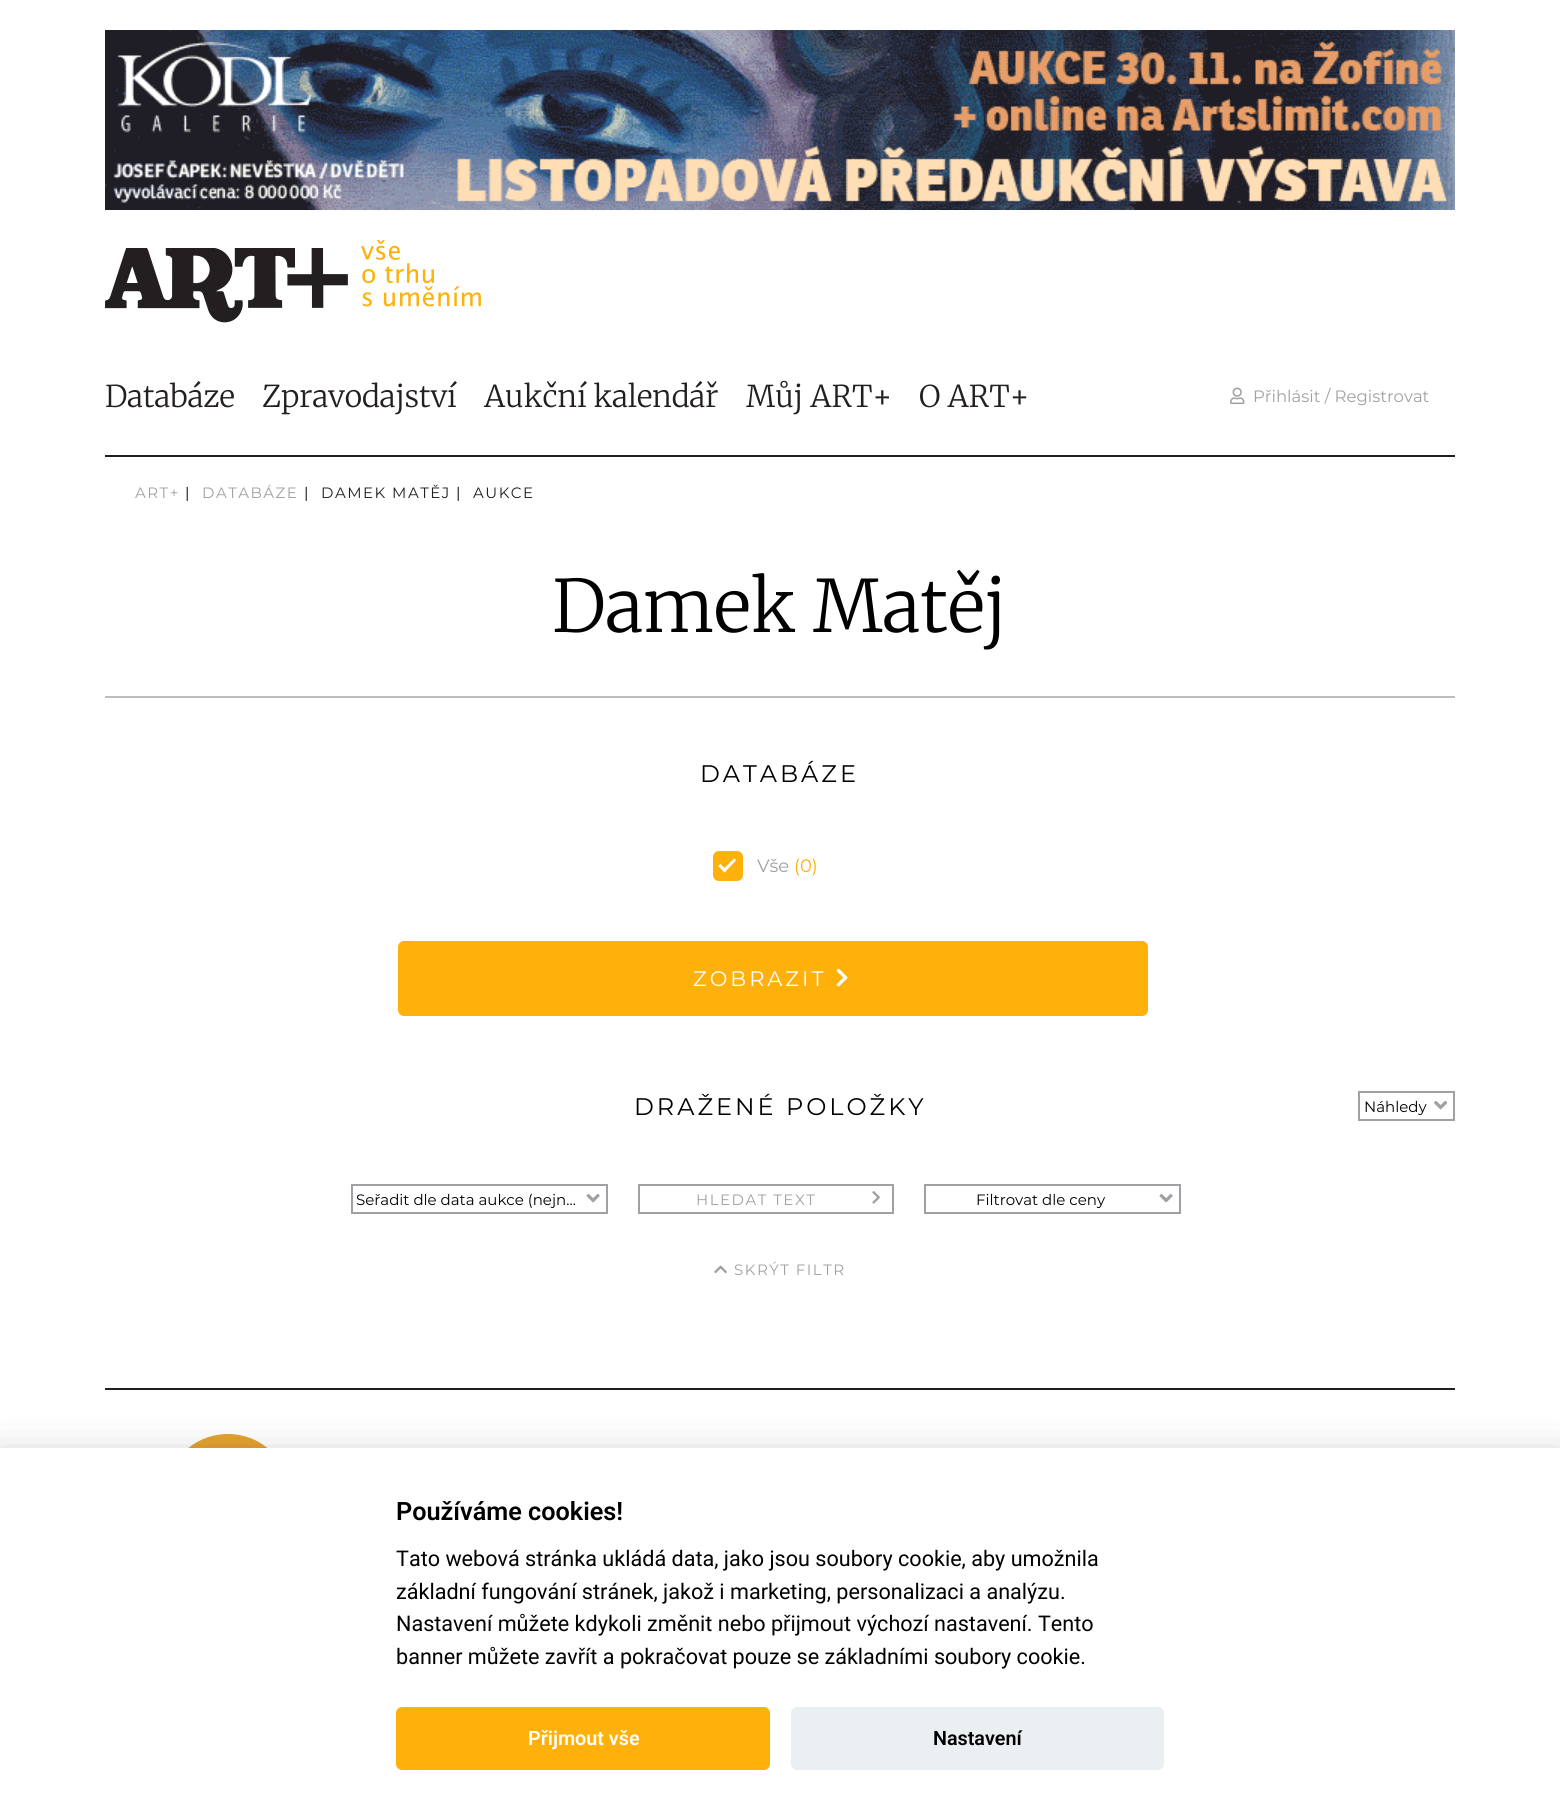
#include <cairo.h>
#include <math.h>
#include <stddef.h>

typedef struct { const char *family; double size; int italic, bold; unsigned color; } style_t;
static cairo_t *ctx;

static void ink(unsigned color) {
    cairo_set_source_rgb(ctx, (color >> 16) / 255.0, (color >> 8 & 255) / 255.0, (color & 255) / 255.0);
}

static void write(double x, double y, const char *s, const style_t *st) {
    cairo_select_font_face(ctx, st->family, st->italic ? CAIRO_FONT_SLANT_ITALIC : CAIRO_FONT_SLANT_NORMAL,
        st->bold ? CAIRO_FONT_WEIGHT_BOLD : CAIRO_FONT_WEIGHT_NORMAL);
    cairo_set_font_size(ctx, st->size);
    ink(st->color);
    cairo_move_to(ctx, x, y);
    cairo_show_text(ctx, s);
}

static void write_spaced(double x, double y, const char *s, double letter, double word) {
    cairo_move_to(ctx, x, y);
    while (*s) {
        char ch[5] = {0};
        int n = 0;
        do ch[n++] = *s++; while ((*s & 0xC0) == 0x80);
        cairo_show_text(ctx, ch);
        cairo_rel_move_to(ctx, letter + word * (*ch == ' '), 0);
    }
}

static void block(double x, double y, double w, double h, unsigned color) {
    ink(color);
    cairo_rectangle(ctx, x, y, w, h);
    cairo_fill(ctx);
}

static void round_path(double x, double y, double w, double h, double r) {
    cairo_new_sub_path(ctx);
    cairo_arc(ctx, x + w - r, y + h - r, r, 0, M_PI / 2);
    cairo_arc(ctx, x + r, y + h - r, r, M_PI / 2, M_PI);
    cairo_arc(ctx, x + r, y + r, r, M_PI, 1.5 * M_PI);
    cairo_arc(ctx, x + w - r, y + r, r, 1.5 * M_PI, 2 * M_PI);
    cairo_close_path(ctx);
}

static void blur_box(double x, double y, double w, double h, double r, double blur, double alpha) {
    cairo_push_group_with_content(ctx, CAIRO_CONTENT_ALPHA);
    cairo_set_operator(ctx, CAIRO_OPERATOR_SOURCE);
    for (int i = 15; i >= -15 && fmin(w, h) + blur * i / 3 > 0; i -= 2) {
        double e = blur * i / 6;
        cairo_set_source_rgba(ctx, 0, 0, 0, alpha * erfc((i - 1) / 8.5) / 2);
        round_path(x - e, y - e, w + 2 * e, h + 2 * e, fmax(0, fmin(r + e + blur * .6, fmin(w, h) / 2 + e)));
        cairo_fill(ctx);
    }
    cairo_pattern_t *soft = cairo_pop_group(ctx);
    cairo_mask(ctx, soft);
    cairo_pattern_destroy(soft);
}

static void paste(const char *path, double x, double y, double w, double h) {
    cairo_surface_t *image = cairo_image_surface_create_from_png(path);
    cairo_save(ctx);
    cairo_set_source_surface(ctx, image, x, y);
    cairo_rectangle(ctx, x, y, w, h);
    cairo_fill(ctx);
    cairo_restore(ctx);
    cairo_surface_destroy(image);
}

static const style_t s1 = {"Merriweather Light", 30, 0, 0, 0x231f20};
static const style_t s2 = {"Montserrat", 16.5, 0, 0, 0x9fa1a4};
static const style_t s3 = {"Merriweather Light", 72, 0, 0, 0x000000};
static const style_t s4 = {"Montserrat", 18, 0, 0, 0x9fa1a4};
static const style_t s5 = {"Montserrat", 18, 0, 0, 0xfeb00b};
static const style_t s6 = {"Montserrat", 15, 0, 0, 0x000000};
static const style_t s7 = {"Roboto SemiBold", 25.25, 0, 0, 0x000000};
static const style_t s8 = {"Roboto", 21.6, 0, 0, 0x000000};
static const style_t s9 = {"Roboto SemiBold", 19.75, 0, 0, 0xffffff};
static const style_t s10 = {"Roboto SemiBold", 19.75, 0, 0, 0x000000};

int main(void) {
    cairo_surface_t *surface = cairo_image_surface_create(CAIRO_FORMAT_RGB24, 1560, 1817);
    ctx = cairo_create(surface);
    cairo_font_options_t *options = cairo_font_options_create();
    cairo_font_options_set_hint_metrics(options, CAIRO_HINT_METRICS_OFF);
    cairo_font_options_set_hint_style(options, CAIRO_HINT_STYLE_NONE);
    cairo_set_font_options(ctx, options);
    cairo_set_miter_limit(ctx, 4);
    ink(0xffffff);
    cairo_paint(ctx);
    paste("pic1.png", 105, 30, 1350, 180);
    block(105, 455, 1350, 2, 0x231f20);
    paste("pic2.png", 105, 248, 243, 75);
    paste("pic3.png", 361, 240, 120, 67);
    write(105, 407, "Databáze", &s1);
    write(262, 407, "Zpravodajství", &s1);
    write(484, 407, "Aukční kalendář", &s1);
    write(746, 407, "Můj ART+", &s1);
    write(919, 407, "O ART+", &s1);
    paste("pic4.png", 1230, 387, 15, 18);
    write(1253, 402, "Přihlásit / Registrovat", &s2);
    cairo_set_font_size(ctx, 15);
    write_spaced(135, 498, "ART+", 1.5, 0);
    ink(0x000000);
    write_spaced(185, 498, "|", 1.5, 0);
    ink(0x9fa1a4);
    write_spaced(202, 498, "DATABÁZE", 1.5, 0);
    ink(0x000000);
    write_spaced(304, 498, "|", 1.5, 0);
    ink(0x231f20);
    write_spaced(321, 498, "DAMEK MATĚJ", 1.5, 0);
    ink(0x000000);
    write_spaced(456, 498, "|", 1.5, 0);
    ink(0x231f20);
    write_spaced(473, 498, "AUKCE", 1.5, 0);
    write(552, 632, "Damek Matěj", &s3);
    block(105, 696, 1350, 2, 0xbdbcbf);
    cairo_select_font_face(ctx, "Montserrat", CAIRO_FONT_SLANT_NORMAL, CAIRO_FONT_WEIGHT_NORMAL);
    cairo_set_font_size(ctx, 24);
    ink(0x000000);
    write_spaced(700, 782, "DATABÁZE", 3, 0);
    ink(0xfeb00b);
    round_path(714, 852, 28, 28, 5);
    cairo_fill_preserve(ctx);
    cairo_stroke(ctx);
    ink(0xffffff);
    cairo_new_path(ctx);
    cairo_move_to(ctx, 734, 858.5);
    cairo_line_to(ctx, 736, 860.5);
    cairo_line_to(ctx, 724.5, 872.5);
    cairo_line_to(ctx, 722.5, 870);
    cairo_close_path(ctx);
    cairo_fill(ctx);
    cairo_new_path(ctx);
    cairo_move_to(ctx, 720.5, 864);
    cairo_line_to(ctx, 726.5, 870);
    cairo_line_to(ctx, 724.5, 872.5);
    cairo_line_to(ctx, 718, 866);
    cairo_close_path(ctx);
    cairo_fill(ctx);
    write(757, 872, "Vše", &s4);
    write(794, 872, "(0)", &s5);
    round_path(398, 941, 750, 75, 6);
    cairo_fill(ctx);
    cairo_set_font_size(ctx, 21);
    ink(0xffffff);
    write_spaced(693, 986, "ZOBRAZIT", 3, 0);
    paste("pic5.png", 836, 968, 12, 19);
    cairo_set_font_size(ctx, 24);
    ink(0x000000);
    write_spaced(634, 1115, "DRAŽENÉ POLOŽKY", 3, 0);
    cairo_rectangle(ctx, 1359, 1092, 95, 28);
    ink(0x9fa1a4);
    cairo_stroke(ctx);
    write(1364, 1112, "Náhledy", &s6);
    paste("pic6.png", 1434, 1101, 14, 9);
    cairo_rectangle(ctx, 352, 1185, 255, 28);
    ink(0x9fa1a4);
    cairo_stroke(ctx);
    write(356, 1205, "Seřadit dle data aukce (nejn…", &s6);
    paste("pic7.png", 586, 1193, 14, 10);
    cairo_rectangle(ctx, 639, 1185, 254, 28);
    ink(0x9fa1a4);
    cairo_stroke(ctx);
    write_spaced(696, 1205, "HLEDAT TEXT", 1.5, 0);
    paste("pic8.png", 872, 1191, 8, 13);
    cairo_rectangle(ctx, 925, 1185, 255, 28);
    cairo_stroke(ctx);
    write(976, 1205, "Filtrovat dle ceny", &s6);
    paste("pic7.png", 1159, 1193, 14, 10);
    paste("pic9.png", 714, 1265, 13, 9);
    ink(0x9fa1a4);
    write_spaced(734, 1275, "SKRÝT FILTR", 1.5, 0);
    block(105, 1388, 1350, 2, 0x231f20);
    paste("pic10.png", 188, 1434, 80, 14);
    ink(0x020203);
    blur_box(0, 1463, 1560, 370, 0, 22.5, 0.28);
    block(0, 1448, 1560, 369, 0xffffff);
    write(396, 1520, "Používáme cookies!", &s7);
    write(396, 1566, "Tato webová stránka ukládá data, jako jsou soubory cookie, aby umožnila", &s8);
    write(396, 1599, "základní fungování stránek, jakož i marketing, personalizaci a analýzu.", &s8);
    write(396, 1631, "Nastavení můžete kdykoli změnit nebo přijmout výchozí nastavení. Tento", &s8);
    write(396, 1664, "banner můžete zavřít a pokračovat pouze se základními soubory cookie.", &s8);
    ink(0xfeb00b);
    round_path(396, 1707, 374, 63, 6);
    cairo_fill(ctx);
    write(528, 1745, "Přijmout vše", &s9);
    ink(0xeaeff2);
    round_path(791, 1707, 373, 63, 6);
    cairo_fill(ctx);
    write(933, 1745, "Nastavení", &s10);
    cairo_surface_write_to_png(surface, "screenshot.png");
    cairo_font_options_destroy(options);
    cairo_destroy(ctx);
    cairo_surface_destroy(surface);
    return 0;
}
